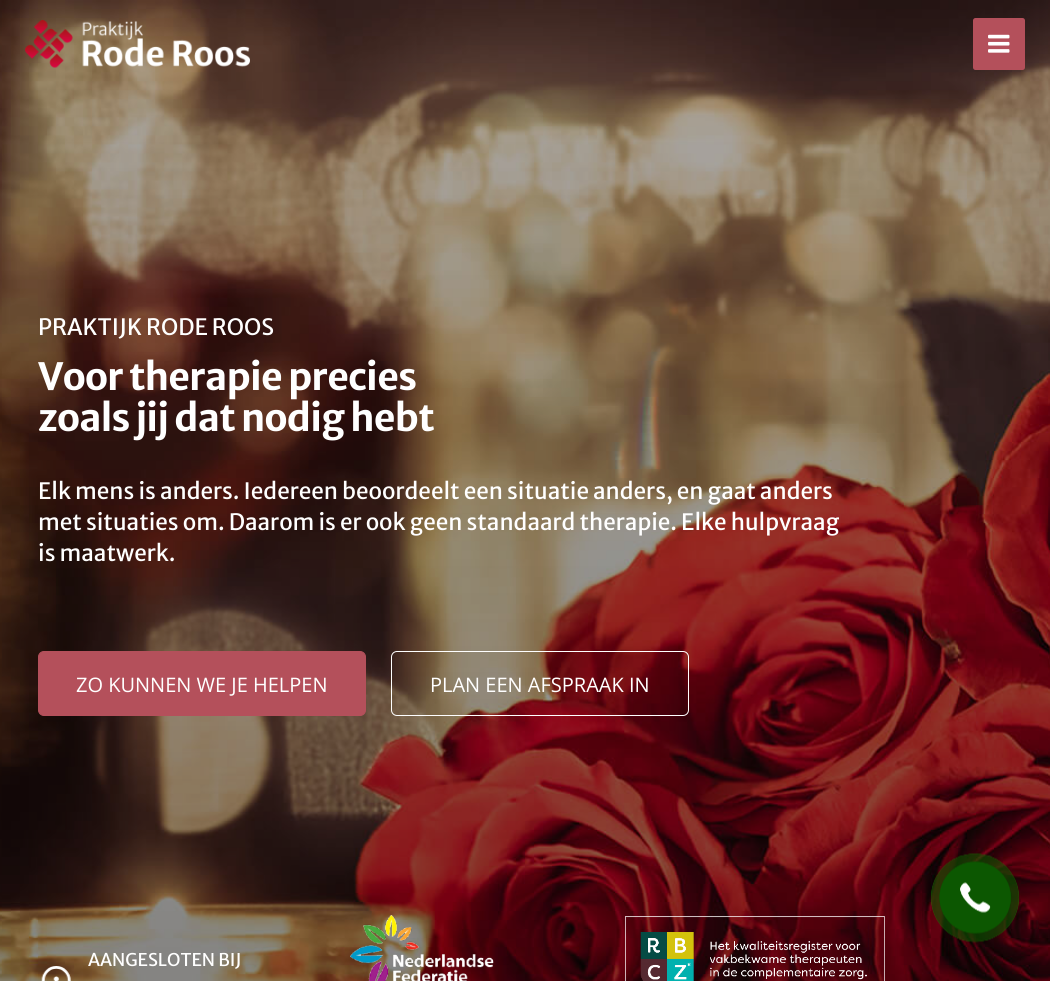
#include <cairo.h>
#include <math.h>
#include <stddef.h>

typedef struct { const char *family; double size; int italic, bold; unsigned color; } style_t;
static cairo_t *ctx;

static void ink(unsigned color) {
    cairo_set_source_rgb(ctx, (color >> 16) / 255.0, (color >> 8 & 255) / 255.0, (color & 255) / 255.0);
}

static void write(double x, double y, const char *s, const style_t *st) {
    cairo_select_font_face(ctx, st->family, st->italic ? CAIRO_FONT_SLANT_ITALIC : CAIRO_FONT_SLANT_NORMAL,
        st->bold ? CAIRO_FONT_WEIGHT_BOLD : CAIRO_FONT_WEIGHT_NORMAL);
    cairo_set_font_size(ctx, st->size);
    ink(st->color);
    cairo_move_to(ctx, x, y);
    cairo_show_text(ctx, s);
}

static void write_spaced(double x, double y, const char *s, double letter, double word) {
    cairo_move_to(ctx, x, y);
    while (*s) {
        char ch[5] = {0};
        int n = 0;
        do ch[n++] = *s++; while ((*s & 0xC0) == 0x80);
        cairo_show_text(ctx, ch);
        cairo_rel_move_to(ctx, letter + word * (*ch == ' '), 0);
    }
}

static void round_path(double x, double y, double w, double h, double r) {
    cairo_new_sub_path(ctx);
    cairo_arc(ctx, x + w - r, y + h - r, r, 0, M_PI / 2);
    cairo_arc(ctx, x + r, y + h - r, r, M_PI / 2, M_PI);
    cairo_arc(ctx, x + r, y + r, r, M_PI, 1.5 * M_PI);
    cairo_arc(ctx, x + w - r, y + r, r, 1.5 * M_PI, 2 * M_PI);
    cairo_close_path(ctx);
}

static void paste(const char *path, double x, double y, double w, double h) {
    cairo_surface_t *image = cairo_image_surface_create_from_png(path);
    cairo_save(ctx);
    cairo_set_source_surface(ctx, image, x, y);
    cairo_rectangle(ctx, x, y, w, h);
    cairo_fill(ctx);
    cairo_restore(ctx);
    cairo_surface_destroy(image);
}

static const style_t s1 = {"Merriweather Sans", 22.5, 0, 0, 0xffffff};
static const style_t s2 = {"Open Sans", 20, 0, 0, 0xffffff};
static const style_t s3 = {"Merriweather Sans", 17.5, 0, 0, 0xffffff};

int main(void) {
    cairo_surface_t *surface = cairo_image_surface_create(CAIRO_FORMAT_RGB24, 1050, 981);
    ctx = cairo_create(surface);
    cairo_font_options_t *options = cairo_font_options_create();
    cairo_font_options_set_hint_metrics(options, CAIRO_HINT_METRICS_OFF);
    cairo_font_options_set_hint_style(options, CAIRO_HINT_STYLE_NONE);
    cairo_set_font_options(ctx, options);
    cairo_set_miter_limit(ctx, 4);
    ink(0xffffff);
    cairo_paint(ctx);
    paste("pic3.png", 0, 0, 1050, 981);
    paste("pic1.png", 25, 20, 225, 48);
    ink(0xb4505b);
    round_path(973, 18, 52, 52, 2.5);
    cairo_fill(ctx);
    paste("pic2.png", 988, 34, 22, 19);
    write(38, 335, "PRAKTIJK RODE ROOS", &s1);
    cairo_select_font_face(ctx, "Merriweather Sans", CAIRO_FONT_SLANT_NORMAL, CAIRO_FONT_WEIGHT_BOLD);
    cairo_set_font_size(ctx, 37.5);
    write_spaced(38, 390, "Voor therapie precies", -0.75, 0);
    write_spaced(38, 431, "zoals jij dat nodig hebt", -0.75, 0);
    write(38, 499, "Elk mens is anders. Iedereen beoordeelt een situatie anders, en gaat anders", &s1);
    write(38, 530, "met situaties om. Daarom is er ook geen standaard therapie. Elke hulpvraag", &s1);
    write(38, 561, "is maatwerk.", &s1);
    ink(0xb4505b);
    round_path(38.5, 651.5, 327, 64, 5.5);
    cairo_fill_preserve(ctx);
    cairo_set_line_width(ctx, 1);
    cairo_stroke(ctx);
    write(76, 692, "ZO KUNNEN WE JE HELPEN", &s2);
    round_path(391.5, 651.5, 297, 64, 5.5);
    cairo_stroke(ctx);
    write(430, 692, "PLAN EEN AFSPRAAK IN", &s2);
    write(88, 966, "AANGESLOTEN BIJ", &s3);
    paste("pic4.png", 350, 915, 144, 66);
    paste("pic5.png", 625, 916, 260, 65);
    paste("pic6.png", 41, 966, 30, 15);
    paste("pic7.png", 931, 853, 88, 90);
    cairo_surface_write_to_png(surface, "screenshot.png");
    cairo_font_options_destroy(options);
    cairo_destroy(ctx);
    cairo_surface_destroy(surface);
    return 0;
}
